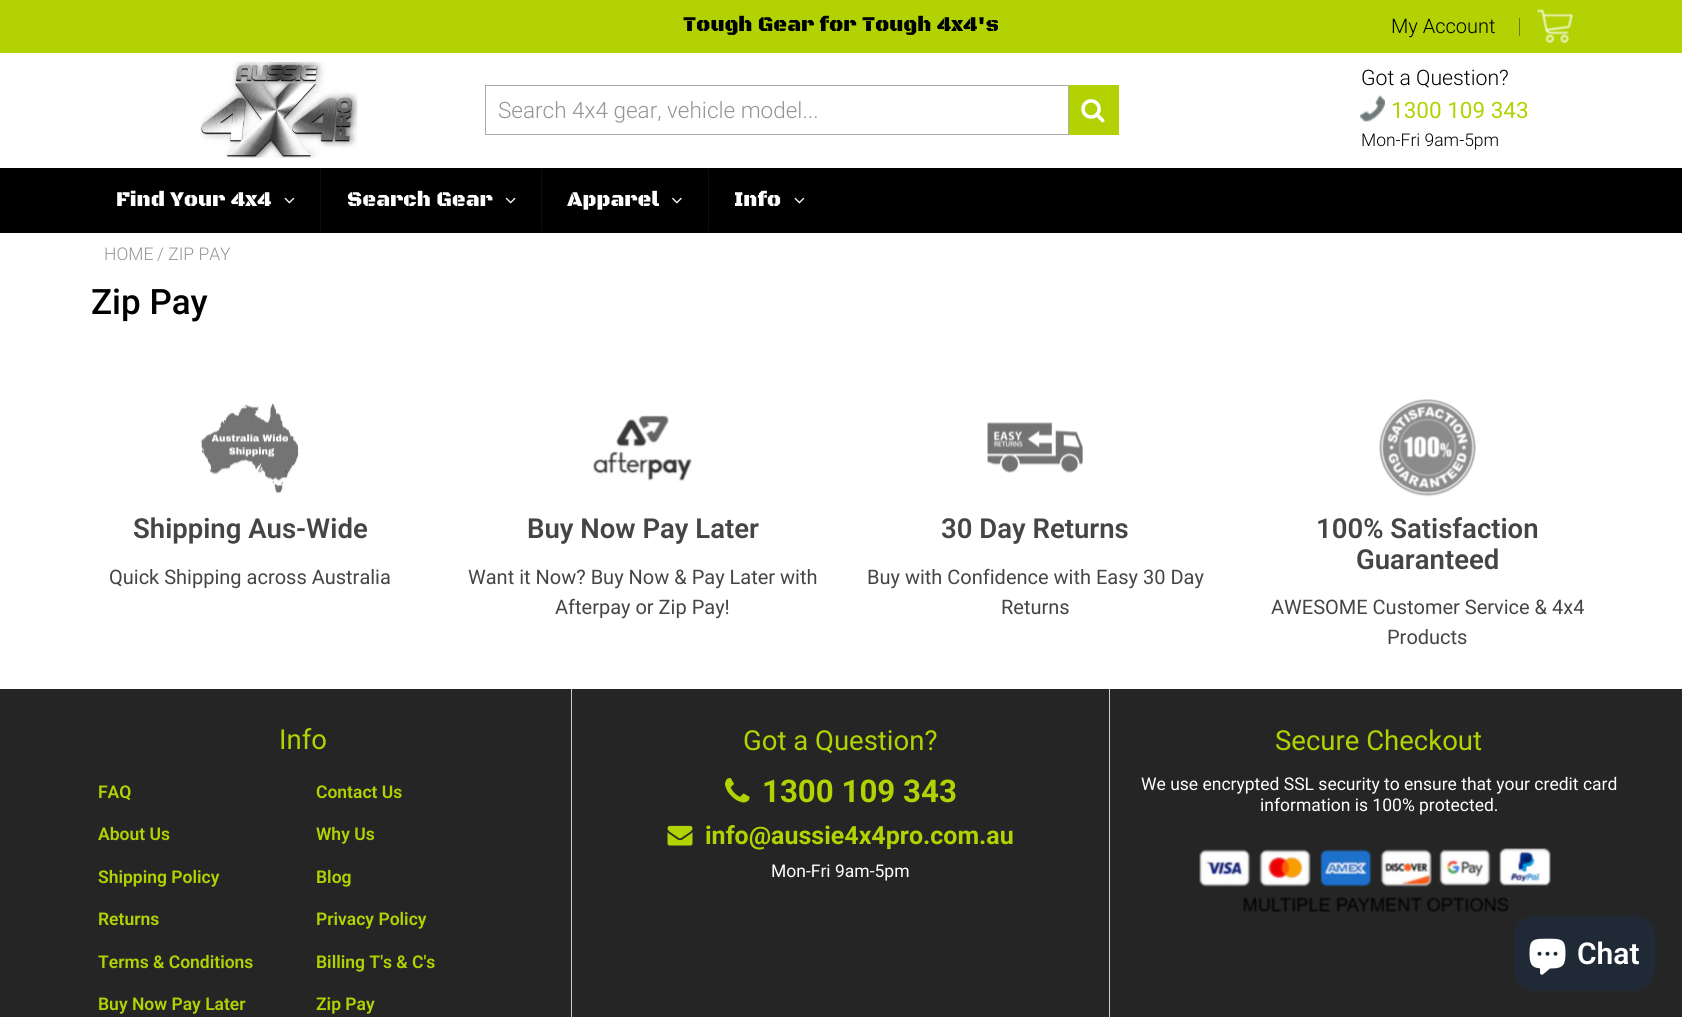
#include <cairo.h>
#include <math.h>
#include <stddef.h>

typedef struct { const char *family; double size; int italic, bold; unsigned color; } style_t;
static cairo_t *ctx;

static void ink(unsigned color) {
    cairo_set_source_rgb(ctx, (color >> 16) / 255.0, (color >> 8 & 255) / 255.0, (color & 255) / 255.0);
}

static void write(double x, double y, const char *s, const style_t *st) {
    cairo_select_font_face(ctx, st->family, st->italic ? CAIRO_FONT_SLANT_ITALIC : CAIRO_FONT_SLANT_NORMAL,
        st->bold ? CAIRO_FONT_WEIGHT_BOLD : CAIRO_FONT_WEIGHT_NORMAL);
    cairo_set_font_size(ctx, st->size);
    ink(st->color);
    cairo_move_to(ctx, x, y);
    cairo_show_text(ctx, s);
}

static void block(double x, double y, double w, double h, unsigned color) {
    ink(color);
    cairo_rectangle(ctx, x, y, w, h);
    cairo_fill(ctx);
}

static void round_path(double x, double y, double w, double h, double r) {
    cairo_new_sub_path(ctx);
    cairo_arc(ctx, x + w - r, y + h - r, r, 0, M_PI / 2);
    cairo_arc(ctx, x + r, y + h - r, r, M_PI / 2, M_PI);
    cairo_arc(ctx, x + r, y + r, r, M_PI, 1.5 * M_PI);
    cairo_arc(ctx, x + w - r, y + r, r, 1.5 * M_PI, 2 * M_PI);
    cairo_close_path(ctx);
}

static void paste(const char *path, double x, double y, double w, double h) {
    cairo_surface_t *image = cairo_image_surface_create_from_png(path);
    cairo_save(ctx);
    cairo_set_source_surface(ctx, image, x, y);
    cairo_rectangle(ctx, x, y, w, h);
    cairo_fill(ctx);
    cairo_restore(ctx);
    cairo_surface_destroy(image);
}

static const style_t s1 = {"Black Ops One Black", 21.25, 0, 0, 0x000000};
static const style_t s2 = {"Roboto Light", 20, 0, 0, 0x000000};
static const style_t s3 = {"Roboto Light", 22.5, 0, 0, 0x949494};
static const style_t s4 = {"Roboto Light", 21.25, 0, 0, 0x000000};
static const style_t s5 = {"Roboto", 22.5, 0, 0, 0xb2d203};
static const style_t s6 = {"Roboto Light", 17.5, 0, 0, 0x000000};
static const style_t s7 = {"Black Ops One Black", 21.25, 0, 0, 0xffffff};
static const style_t s8 = {"Roboto Light", 17.5, 0, 0, 0x949494};
static const style_t s9 = {"Roboto Medium", 35, 0, 0, 0x000000};
static const style_t s10 = {"Roboto SemiBold", 27.5, 0, 0, 0x454545};
static const style_t s11 = {"Roboto", 20, 0, 0, 0x454545};
static const style_t s12 = {"Roboto", 27.5, 0, 0, 0xb2d203};
static const style_t s13 = {"Roboto SemiBold", 17.5, 0, 0, 0xb2d203};
static const style_t s14 = {"Roboto", 31.25, 0, 1, 0xb2d203};
static const style_t s15 = {"Roboto", 25, 0, 1, 0xb2d203};
static const style_t s16 = {"Roboto", 17.5, 0, 0, 0xffffff};
static const style_t s17 = {"Roboto SemiBold", 30, 0, 0, 0xffffff};

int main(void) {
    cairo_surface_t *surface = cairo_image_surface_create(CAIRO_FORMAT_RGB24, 1682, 1017);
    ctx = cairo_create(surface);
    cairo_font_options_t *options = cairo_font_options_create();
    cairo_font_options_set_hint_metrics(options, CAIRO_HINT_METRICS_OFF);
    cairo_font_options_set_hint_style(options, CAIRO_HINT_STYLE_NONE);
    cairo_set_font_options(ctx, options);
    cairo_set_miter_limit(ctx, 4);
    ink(0xffffff);
    cairo_paint(ctx);
    block(0, 0, 1682, 53, 0xb2d203);
    write(683, 31, "Tough Gear for Tough 4x4's", &s1);
    write(1391, 33, "My Account", &s2);
    block(1519, 18, 1, 18, 0x6b7e02);
    paste("pic1.png", 1537, 9, 36, 35);
    paste("pic2.png", 200, 61, 158, 97);
    cairo_rectangle(ctx, 485.5, 85.5, 583, 49);
    ink(0xacaaaa);
    cairo_set_line_width(ctx, 1);
    cairo_stroke(ctx);
    write(498, 118, "Search 4x4 gear, vehicle model...", &s3);
    block(1069, 85, 50, 50, 0xb2d203);
    paste("pic3.png", 1081, 99, 24, 24);
    write(1361, 85, "Got a Question?", &s4);
    paste("pic4.png", 1360, 95, 25, 27);
    write(1391, 118, "1300 109 343", &s5);
    write(1361, 146, "Mon-Fri 9am-5pm", &s6);
    block(0, 168, 1682, 65, 0x000000);
    write(116, 206, "Find Your 4x4", &s7);
    paste("pic5.png", 284, 197, 11, 7);
    block(320, 169, 1, 62, 0x0f0f0f);
    write(347, 206, "Search Gear", &s7);
    paste("pic6.png", 505, 197, 11, 7);
    block(541, 169, 1, 62, 0x0f0f0f);
    write(567, 206, "Apparel", &s7);
    paste("pic7.png", 672, 197, 10, 7);
    block(708, 169, 1, 62, 0x0f0f0f);
    write(734, 206, "Info", &s7);
    paste("pic5.png", 794, 197, 11, 7);
    write(104, 260, "HOME", &s8);
    write(157, 260, "/ ZIP PAY", &s8);
    write(91, 314, "Zip Pay", &s9);
    paste("pic8.png", 201, 403, 98, 91);
    write(133, 538, "Shipping Aus-Wide", &s10);
    write(109, 584, "Quick Shipping across Australia", &s11);
    paste("pic9.png", 593, 415, 99, 67);
    write(527, 538, "Buy Now Pay Later", &s10);
    write(468, 584, "Want it Now? Buy Now & Pay Later with", &s11);
    write(555, 614, "Afterpay or Zip Pay!", &s11);
    paste("pic10.png", 987, 422, 96, 51);
    write(941, 538, "30 Day Returns", &s10);
    write(867, 584, "Buy with Confidence with Easy 30 Day", &s11);
    write(1001, 614, "Returns", &s11);
    paste("pic11.png", 1379, 399, 97, 98);
    write(1316, 538, "100% Satisfaction", &s10);
    write(1356, 569, "Guaranteed", &s10);
    write(1271, 614, "AWESOME Customer Service & 4x4", &s11);
    write(1387, 644, "Products", &s11);
    block(0, 689, 1682, 328, 0x252525);
    block(571, 689, 1, 328, 0xcccccc);
    write(279, 749, "Info", &s12);
    write(98, 798, "FAQ", &s13);
    write(316, 798, "Contact Us", &s13);
    write(98, 840, "About Us", &s13);
    write(316, 840, "Why Us", &s13);
    write(98, 883, "Shipping Policy", &s13);
    write(316, 883, "Blog", &s13);
    write(98, 925, "Returns", &s13);
    write(316, 925, "Privacy Policy", &s13);
    write(98, 968, "Terms & Conditions", &s13);
    write(316, 968, "Billing T's & C's", &s13);
    write(98, 1010, "Buy Now Pay Later", &s13);
    write(316, 1010, "Zip Pay", &s13);
    block(1109, 689, 1, 328, 0xcccccc);
    write(743, 750, "Got a Question?", &s12);
    paste("pic12.png", 725, 778, 25, 25);
    write(762, 802, "1300 109 343", &s14);
    paste("pic13.png", 667, 825, 26, 21);
    write(705, 844, "info@aussie4x4pro.com.au", &s15);
    write(771, 877, "Mon-Fri 9am-5pm", &s16);
    write(1275, 750, "Secure Checkout", &s12);
    write(1141, 790, "We use encrypted SSL security to ensure that your credit card", &s16);
    write(1260, 811, "information is 100% protected.", &s16);
    paste("pic14.png", 1199, 848, 352, 64);
    ink(0x202a36);
    round_path(1514, 916, 141, 75, 20);
    cairo_fill(ctx);
    paste("pic15.png", 1529, 938, 37, 37);
    write(1577, 964, "Chat", &s17);
    cairo_surface_write_to_png(surface, "screenshot.png");
    cairo_font_options_destroy(options);
    cairo_destroy(ctx);
    cairo_surface_destroy(surface);
    return 0;
}
